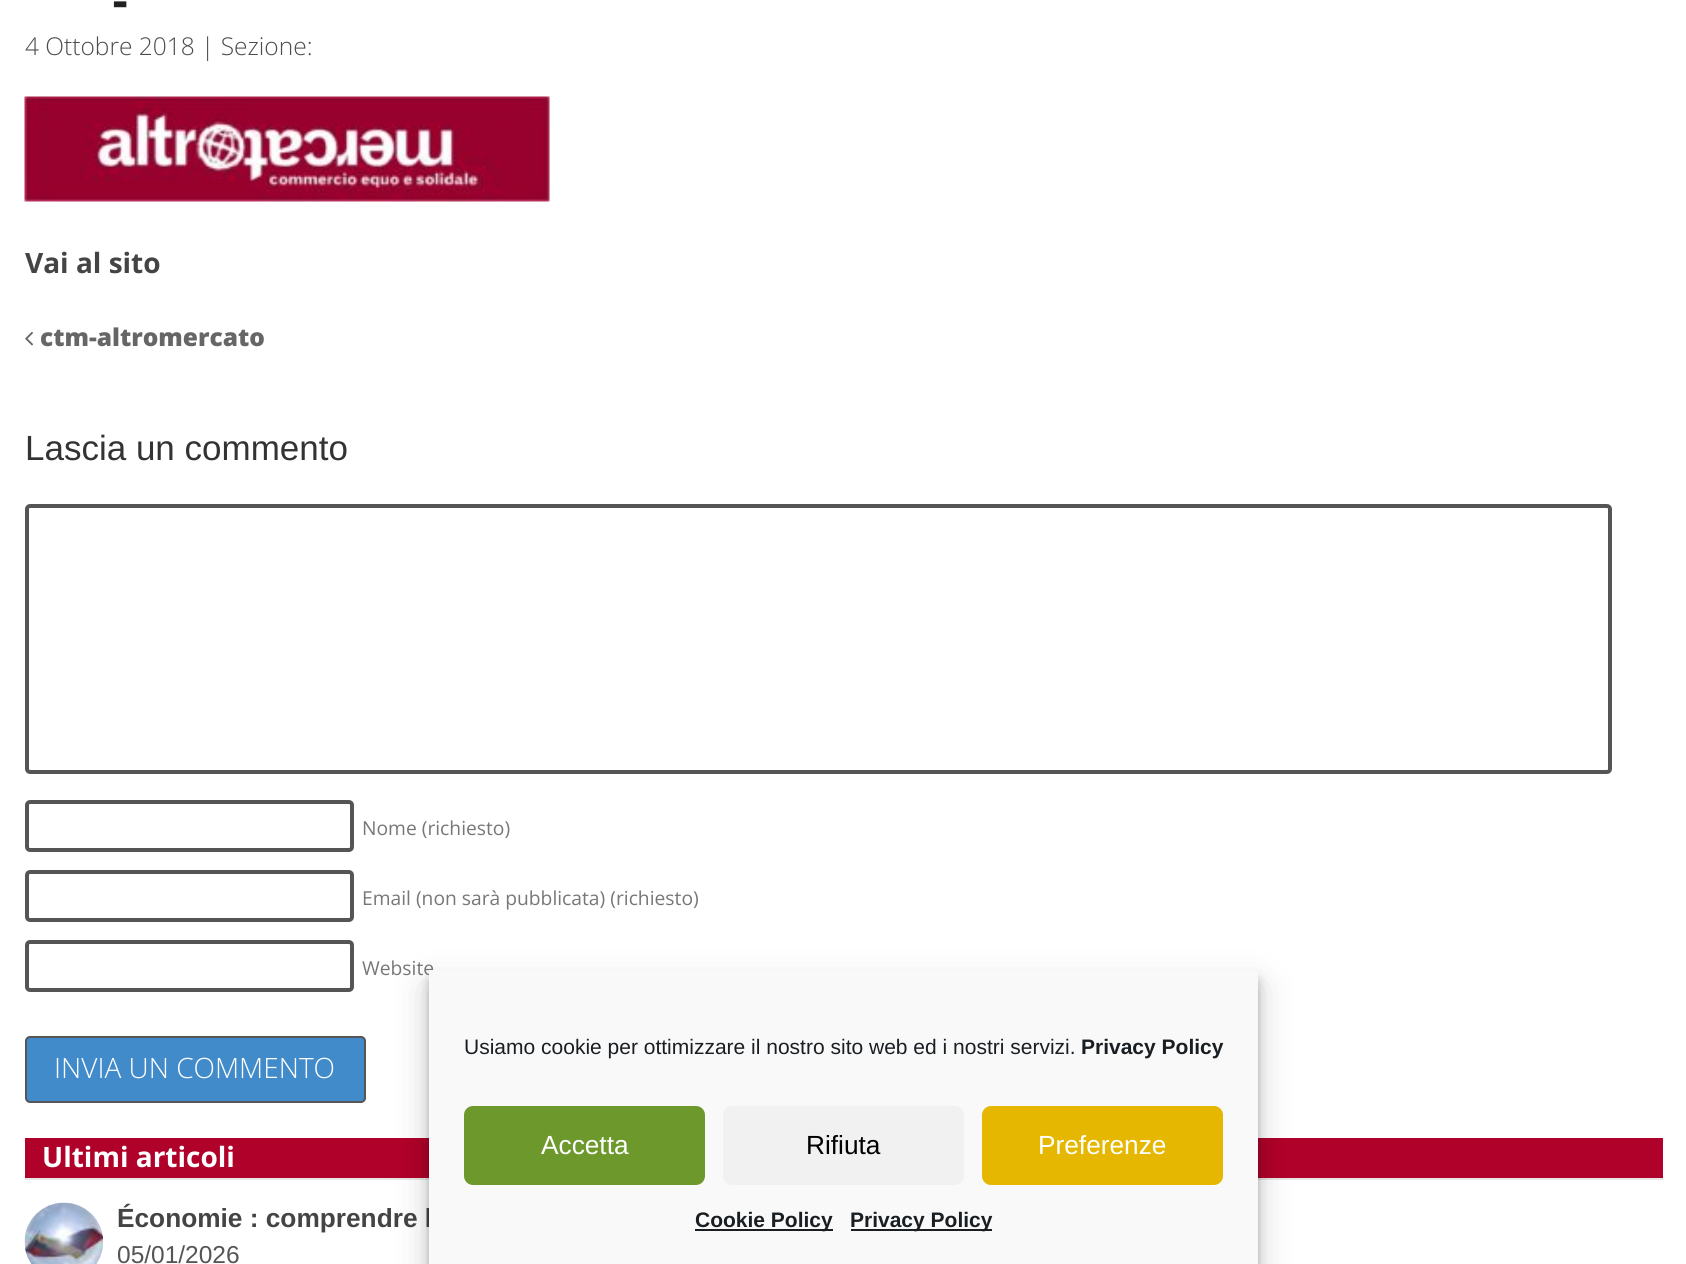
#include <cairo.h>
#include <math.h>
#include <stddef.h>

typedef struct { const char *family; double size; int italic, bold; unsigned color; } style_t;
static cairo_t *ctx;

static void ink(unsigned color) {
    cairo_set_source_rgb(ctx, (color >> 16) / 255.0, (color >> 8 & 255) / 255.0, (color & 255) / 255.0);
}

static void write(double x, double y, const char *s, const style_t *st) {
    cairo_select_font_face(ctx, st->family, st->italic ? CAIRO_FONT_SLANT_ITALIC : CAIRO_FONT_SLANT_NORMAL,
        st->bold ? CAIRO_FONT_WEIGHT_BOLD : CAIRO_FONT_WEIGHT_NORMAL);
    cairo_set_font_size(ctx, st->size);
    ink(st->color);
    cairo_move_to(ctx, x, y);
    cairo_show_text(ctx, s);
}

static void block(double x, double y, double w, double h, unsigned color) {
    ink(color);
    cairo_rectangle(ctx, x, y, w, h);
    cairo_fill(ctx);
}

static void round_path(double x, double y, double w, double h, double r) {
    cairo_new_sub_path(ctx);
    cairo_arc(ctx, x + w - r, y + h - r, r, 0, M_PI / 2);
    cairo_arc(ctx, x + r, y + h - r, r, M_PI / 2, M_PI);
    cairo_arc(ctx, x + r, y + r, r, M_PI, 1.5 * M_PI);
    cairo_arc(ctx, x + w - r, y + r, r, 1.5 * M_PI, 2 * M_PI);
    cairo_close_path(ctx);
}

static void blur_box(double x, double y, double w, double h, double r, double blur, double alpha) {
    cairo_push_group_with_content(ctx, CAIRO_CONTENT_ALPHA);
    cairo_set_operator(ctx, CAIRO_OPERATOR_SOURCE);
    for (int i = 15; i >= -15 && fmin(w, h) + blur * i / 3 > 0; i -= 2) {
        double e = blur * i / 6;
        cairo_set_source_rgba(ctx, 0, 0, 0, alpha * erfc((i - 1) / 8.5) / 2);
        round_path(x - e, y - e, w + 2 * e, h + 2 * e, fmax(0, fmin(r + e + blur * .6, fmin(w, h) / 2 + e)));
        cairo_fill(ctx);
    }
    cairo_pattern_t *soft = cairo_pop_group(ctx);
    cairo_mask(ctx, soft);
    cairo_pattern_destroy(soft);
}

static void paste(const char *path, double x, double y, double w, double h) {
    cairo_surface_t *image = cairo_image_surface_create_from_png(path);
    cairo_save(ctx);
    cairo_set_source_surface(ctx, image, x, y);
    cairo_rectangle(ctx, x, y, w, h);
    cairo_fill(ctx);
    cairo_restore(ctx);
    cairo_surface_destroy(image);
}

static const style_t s1 = {"Liberation Sans", 49, 0, 1, 0x222222};
static const style_t s2 = {"Open Sans Light", 24.5, 0, 0, 0x4c4c4c};
static const style_t s3 = {"Open Sans", 28, 0, 1, 0x444444};
static const style_t s4 = {"Open Sans ExtraBold", 24.5, 0, 0, 0x666666};
static const style_t s5 = {"Liberation Sans", 35, 0, 0, 0x333333};
static const style_t s6 = {"Open Sans", 19.25, 0, 0, 0x777777};
static const style_t s7 = {"Open Sans Light", 28, 0, 0, 0xffffff};
static const style_t s8 = {"Open Sans", 28, 0, 1, 0xffffff};
static const style_t s9 = {"Liberation Sans", 26.25, 0, 1, 0x444444};
static const style_t s10 = {"Liberation Sans", 24.5, 0, 0, 0x555555};
static const style_t s11 = {"Liberation Sans", 21, 0, 0, 0x191e23};
static const style_t s12 = {"Liberation Sans", 21, 0, 1, 0x191e23};
static const style_t s13 = {"Liberation Sans", 26.25, 0, 0, 0xffffff};
static const style_t s14 = {"Liberation Sans", 26.25, 0, 0, 0x000000};

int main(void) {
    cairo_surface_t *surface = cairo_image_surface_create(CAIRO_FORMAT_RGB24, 1686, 1264);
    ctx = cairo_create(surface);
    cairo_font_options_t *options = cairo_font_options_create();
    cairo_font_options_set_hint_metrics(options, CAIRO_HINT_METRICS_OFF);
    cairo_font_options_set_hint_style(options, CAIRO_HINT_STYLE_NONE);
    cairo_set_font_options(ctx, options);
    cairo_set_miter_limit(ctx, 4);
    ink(0xffffff);
    cairo_paint(ctx);
    write(112, 17, "-", &s1);
    write(25, 55, "4 Ottobre 2018 | Sezione:", &s2);
    paste("pic1.png", 24, 96, 526, 106);
    write(25, 273, "Vai al sito", &s3);
    paste("pic2.png", 25, 331, 8, 15);
    write(40, 346, "ctm-altromercato", &s4);
    write(25, 460, "Lascia un commento", &s5);
    round_path(27, 506, 1583, 266, 3);
    ink(0x555555);
    cairo_set_line_width(ctx, 4);
    cairo_stroke(ctx);
    round_path(27, 802, 325, 48, 3);
    cairo_stroke(ctx);
    write(362, 835, "Nome (richiesto)", &s6);
    round_path(27, 872, 325, 48, 3);
    ink(0x555555);
    cairo_stroke(ctx);
    write(362, 905, "Email (non sarà pubblicata) (richiesto)", &s6);
    round_path(27, 942, 325, 48, 3);
    ink(0x555555);
    cairo_stroke(ctx);
    write(362, 975, "Website", &s6);
    ink(0x428bca);
    round_path(26, 1037, 339, 65, 4);
    cairo_fill_preserve(ctx);
    ink(0x555555);
    cairo_set_line_width(ctx, 2);
    cairo_stroke(ctx);
    write(54, 1078, "INVIA UN COMMENTO", &s7);
    block(25, 1138, 1638, 40, 0xb0012a);
    block(25, 1178, 1638, 2, 0xe6e6e6);
    write(42, 1167, "Ultimi articoli", &s8);
    paste("pic3.png", 24, 1202, 80, 62);
    write(117, 1227, "Économie : comprendre l", &s9);
    write(117, 1263, "05/01/2026", &s10);
    ink(0x000000);
    blur_box(429, 980, 829, 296, 0, 5, 0.23);
    blur_box(429, 987, 829, 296, 0, 17.5, 0.19);
    block(429, 970, 829, 294, 0xf9f9f9);
    write(464, 1054, "Usiamo cookie per ottimizzare il nostro sito web ed i nostri servizi.", &s11);
    write(1081, 1054, "Privacy Policy", &s12);
    ink(0x6d992c);
    round_path(465, 1107, 239, 77, 8);
    cairo_fill_preserve(ctx);
    cairo_stroke(ctx);
    write(541, 1154, "Accetta", &s13);
    ink(0xf1f1f1);
    round_path(723, 1106, 241, 79, 9);
    cairo_fill(ctx);
    write(806, 1154, "Rifiuta", &s14);
    ink(0xe5b700);
    round_path(983, 1107, 239, 77, 8);
    cairo_fill_preserve(ctx);
    cairo_stroke(ctx);
    write(1038, 1154, "Preferenze", &s13);
    block(695, 1229, 138, 2, 0x191e23);
    write(695, 1227, "Cookie Policy", &s12);
    block(851, 1229, 141, 2, 0x191e23);
    write(850, 1227, "Privacy Policy", &s12);
    cairo_surface_write_to_png(surface, "screenshot.png");
    cairo_font_options_destroy(options);
    cairo_destroy(ctx);
    cairo_surface_destroy(surface);
    return 0;
}
